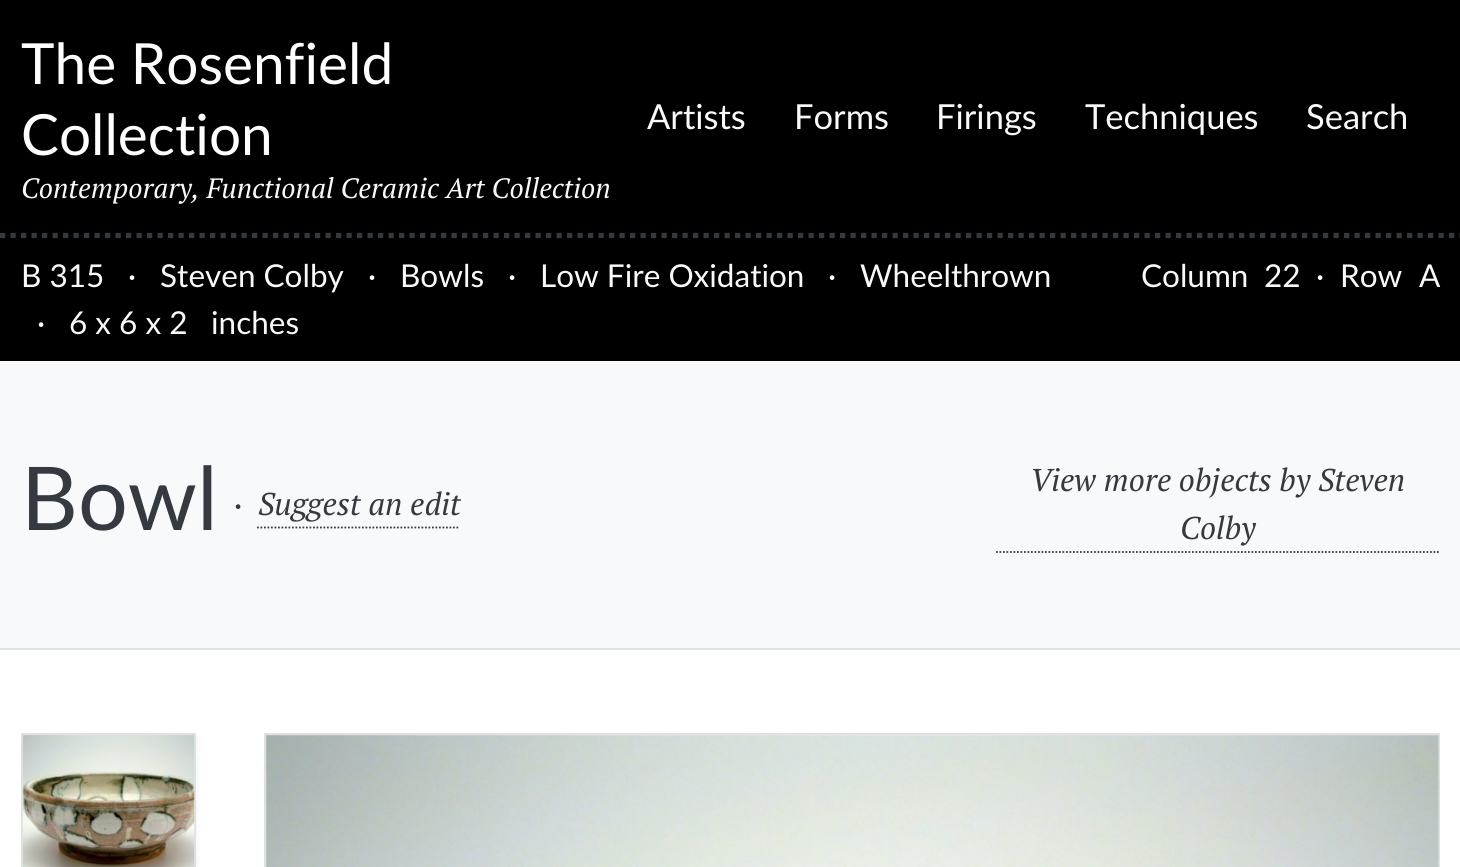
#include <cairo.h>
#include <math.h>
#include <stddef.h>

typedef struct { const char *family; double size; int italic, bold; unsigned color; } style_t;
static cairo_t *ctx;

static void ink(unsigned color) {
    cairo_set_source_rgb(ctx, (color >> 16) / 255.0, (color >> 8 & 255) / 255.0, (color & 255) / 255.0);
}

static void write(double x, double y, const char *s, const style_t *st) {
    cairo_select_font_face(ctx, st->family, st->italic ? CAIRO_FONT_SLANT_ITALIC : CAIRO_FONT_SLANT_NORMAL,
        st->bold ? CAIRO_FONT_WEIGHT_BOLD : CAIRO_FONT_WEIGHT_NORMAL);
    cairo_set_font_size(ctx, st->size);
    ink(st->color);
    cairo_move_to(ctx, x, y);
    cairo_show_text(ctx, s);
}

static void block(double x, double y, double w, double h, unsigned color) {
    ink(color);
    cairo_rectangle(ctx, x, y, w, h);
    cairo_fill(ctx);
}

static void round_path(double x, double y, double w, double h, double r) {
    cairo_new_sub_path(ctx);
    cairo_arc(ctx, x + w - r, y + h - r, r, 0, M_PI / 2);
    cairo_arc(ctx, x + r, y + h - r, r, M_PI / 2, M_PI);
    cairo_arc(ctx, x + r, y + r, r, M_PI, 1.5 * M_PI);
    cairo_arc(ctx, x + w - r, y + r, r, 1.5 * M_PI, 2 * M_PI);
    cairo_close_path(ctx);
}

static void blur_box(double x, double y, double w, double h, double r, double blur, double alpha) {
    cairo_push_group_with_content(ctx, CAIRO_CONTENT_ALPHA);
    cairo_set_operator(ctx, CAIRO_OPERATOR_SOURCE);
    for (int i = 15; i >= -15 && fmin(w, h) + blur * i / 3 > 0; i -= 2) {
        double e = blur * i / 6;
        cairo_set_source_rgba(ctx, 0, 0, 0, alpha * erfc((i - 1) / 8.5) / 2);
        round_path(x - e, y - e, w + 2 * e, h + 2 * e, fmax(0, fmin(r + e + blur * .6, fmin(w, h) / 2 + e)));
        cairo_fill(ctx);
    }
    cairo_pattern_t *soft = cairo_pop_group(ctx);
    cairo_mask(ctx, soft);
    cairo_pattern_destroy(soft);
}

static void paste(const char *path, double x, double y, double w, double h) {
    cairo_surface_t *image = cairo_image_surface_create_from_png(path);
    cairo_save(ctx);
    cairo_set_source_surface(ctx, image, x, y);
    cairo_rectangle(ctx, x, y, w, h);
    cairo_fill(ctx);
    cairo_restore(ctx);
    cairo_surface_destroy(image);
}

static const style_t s1 = {"Lato", 56.75, 0, 0, 0xffffff};
static const style_t s2 = {"PT Serif", 28, 1, 0, 0xf8f9fa};
static const style_t s3 = {"Lato", 34.5, 0, 0, 0xf8f9fa};
static const style_t s4 = {"Lato", 31.5, 0, 0, 0xf8f9fa};
static const style_t s5 = {"Lato", 31.5, 0, 0, 0xffffff};
static const style_t s6 = {"Lato", 88, 0, 0, 0x343a40};
static const style_t s7 = {"Lato", 31.5, 0, 0, 0x343a40};
static const style_t s8 = {"PT Serif", 31.5, 1, 0, 0x343a40};

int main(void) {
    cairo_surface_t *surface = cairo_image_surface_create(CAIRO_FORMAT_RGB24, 1460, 867);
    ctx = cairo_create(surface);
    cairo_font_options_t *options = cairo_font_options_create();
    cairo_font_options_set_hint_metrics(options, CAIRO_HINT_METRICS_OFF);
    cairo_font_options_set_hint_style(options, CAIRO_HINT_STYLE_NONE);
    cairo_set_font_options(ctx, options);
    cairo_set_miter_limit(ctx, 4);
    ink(0xffffff);
    cairo_paint(ctx);
    block(0, 0, 1460, 361, 0x000000);
    write(21, 84, "The Rosenfield", &s1);
    write(21, 155, "Collection", &s1);
    write(21, 198, "Contemporary, Functional Ceramic Art Collection", &s2);
    write(647, 129, "Artists", &s3);
    write(794, 129, "Forms", &s3);
    write(936, 129, "Firings", &s3);
    write(1085, 129, "Techniques", &s3);
    write(1306, 129, "Search", &s3);
    cairo_new_path(ctx);
    cairo_move_to(ctx, 0, 235.5);
    cairo_line_to(ctx, 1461, 235.5);
    ink(0x343a40);
    cairo_set_line_width(ctx, 5.2);
    cairo_set_dash(ctx, (double[]){5.25, 5.25}, 2, 0);
    cairo_stroke(ctx);
    write(21, 287, "B 315", &s4);
    write(128, 287, "·", &s5);
    write(160, 287, "Steven Colby", &s4);
    write(368, 287, "·", &s5);
    write(400, 287, "Bowls", &s4);
    write(508, 287, "·", &s5);
    write(540, 287, "Low Fire Oxidation", &s4);
    write(828, 287, "·", &s5);
    write(860, 287, "Wheelthrown", &s4);
    write(37, 334, "·", &s5);
    write(69, 334, "6 x 6 x 2", &s4);
    write(211, 334, "inches", &s4);
    write(1141, 287, "Column", &s4);
    write(1264, 287, "22", &s4);
    write(1316, 287, "·", &s5);
    write(1340, 287, "Row", &s4);
    write(1419, 287, "A", &s4);
    block(0, 361, 1460, 287, 0xf8f9fa);
    block(0, 648, 1460, 2, 0xdee2e6);
    write(21, 530, "Bowl", &s6);
    write(234, 516, "·", &s7);
    cairo_new_path(ctx);
    cairo_move_to(ctx, 257, 527.5);
    cairo_line_to(ctx, 460, 527.5);
    cairo_set_line_width(ctx, 1.8);
    cairo_set_dash(ctx, (double[]){1.75, 1.75}, 2, 0);
    cairo_stroke(ctx);
    write(258, 515, "Suggest an edit", &s8);
    cairo_new_path(ctx);
    cairo_move_to(ctx, 996, 552);
    cairo_line_to(ctx, 1440, 552);
    cairo_stroke(ctx);
    write(1030, 491, "View more objects by Steven", &s8);
    write(1180, 539, "Colby", &s8);
    cairo_save(ctx);
    cairo_rectangle(ctx, 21, 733, 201, 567);
    cairo_clip(ctx);
    ink(0x000000);
    blur_box(21, 737, 175, 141, 0, 3.5, 0.07);
    cairo_restore(ctx);
    cairo_rectangle(ctx, 22, 734, 173, 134);
    ink(0xdee2e6);
    cairo_set_line_width(ctx, 2);
    cairo_set_dash(ctx, NULL, 0, 0);
    cairo_stroke(ctx);
    paste("pic1.png", 22, 735, 173, 132);
    cairo_rectangle(ctx, 265, 734, 1174, 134);
    cairo_stroke(ctx);
    paste("pic2.png", 265, 734, 1174, 133);
    cairo_surface_write_to_png(surface, "screenshot.png");
    cairo_font_options_destroy(options);
    cairo_destroy(ctx);
    cairo_surface_destroy(surface);
    return 0;
}
